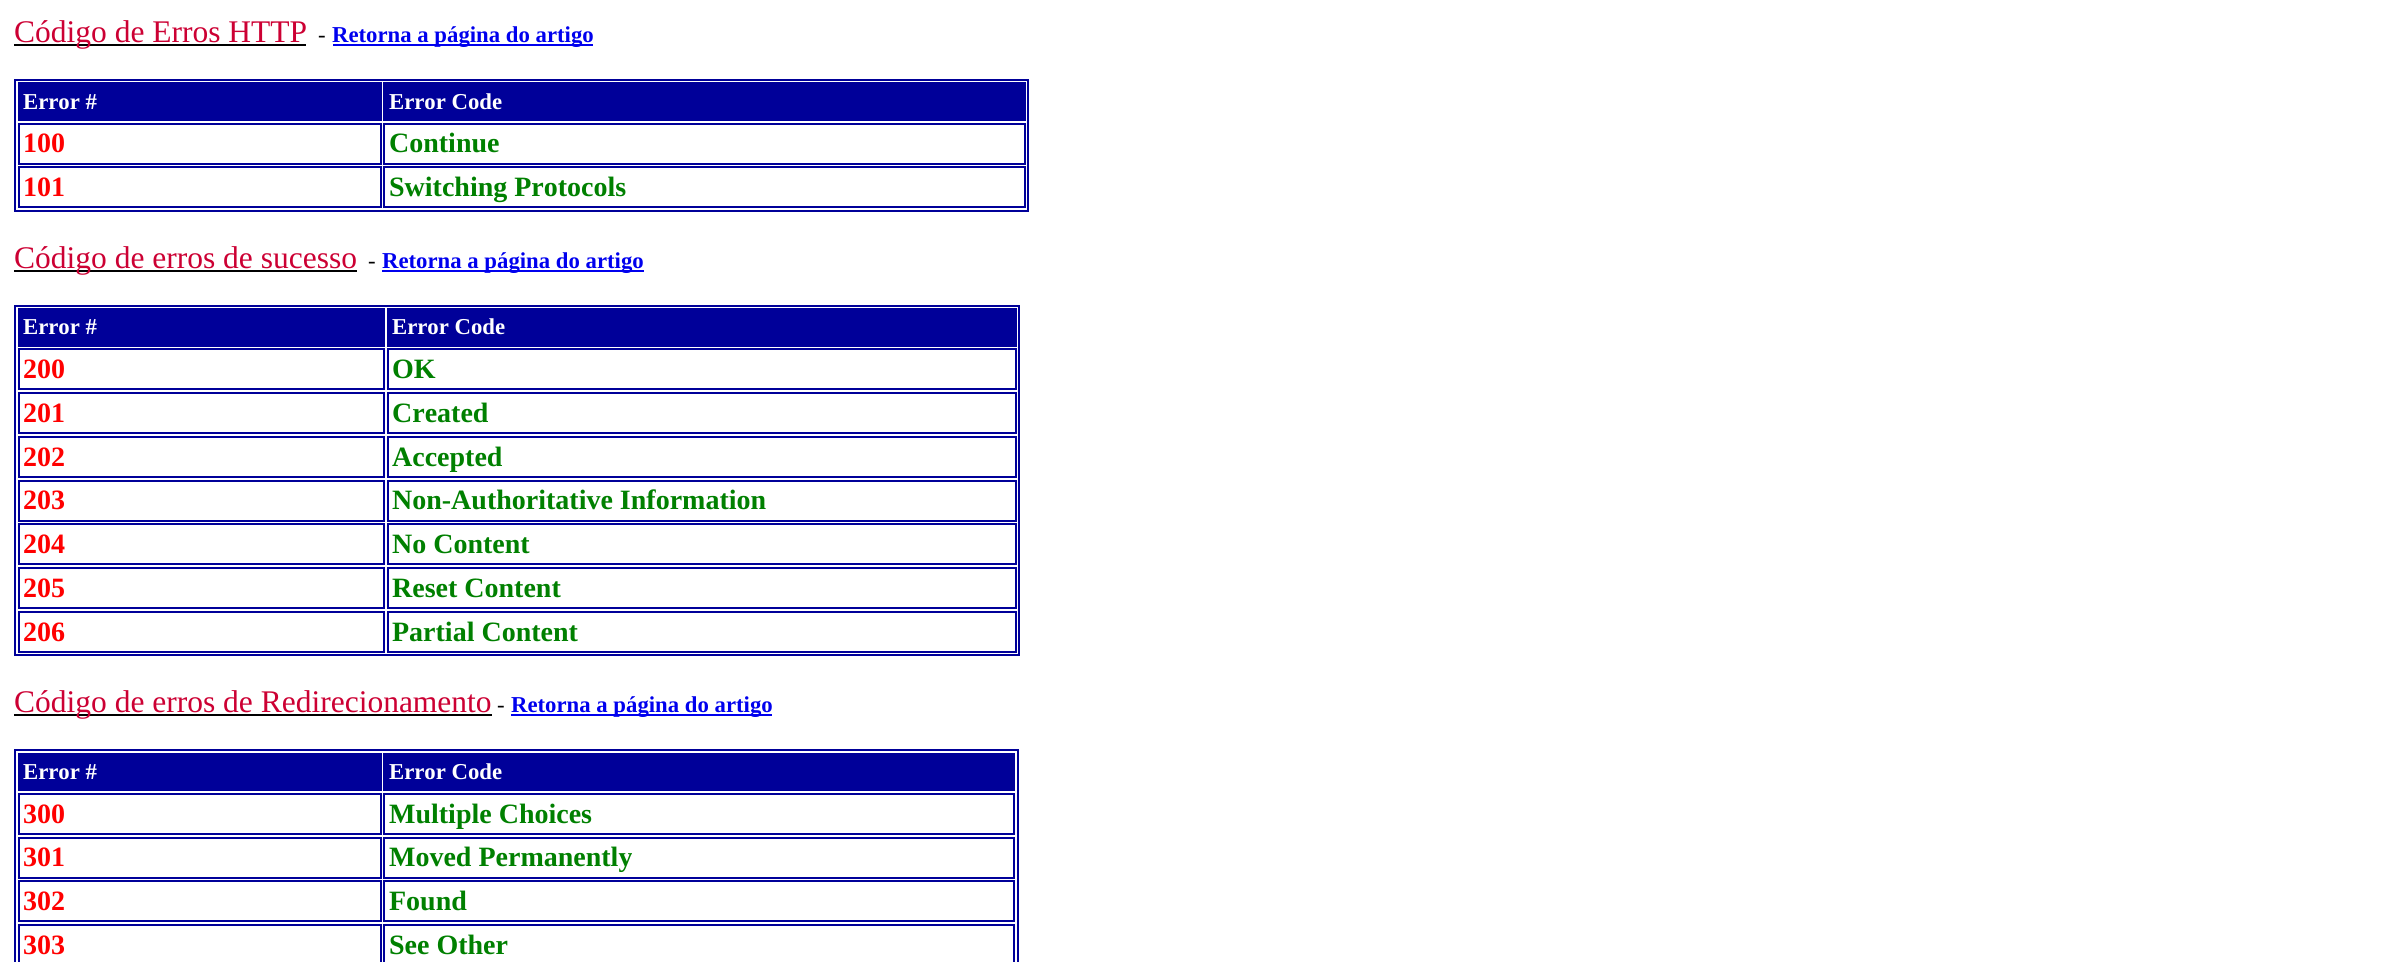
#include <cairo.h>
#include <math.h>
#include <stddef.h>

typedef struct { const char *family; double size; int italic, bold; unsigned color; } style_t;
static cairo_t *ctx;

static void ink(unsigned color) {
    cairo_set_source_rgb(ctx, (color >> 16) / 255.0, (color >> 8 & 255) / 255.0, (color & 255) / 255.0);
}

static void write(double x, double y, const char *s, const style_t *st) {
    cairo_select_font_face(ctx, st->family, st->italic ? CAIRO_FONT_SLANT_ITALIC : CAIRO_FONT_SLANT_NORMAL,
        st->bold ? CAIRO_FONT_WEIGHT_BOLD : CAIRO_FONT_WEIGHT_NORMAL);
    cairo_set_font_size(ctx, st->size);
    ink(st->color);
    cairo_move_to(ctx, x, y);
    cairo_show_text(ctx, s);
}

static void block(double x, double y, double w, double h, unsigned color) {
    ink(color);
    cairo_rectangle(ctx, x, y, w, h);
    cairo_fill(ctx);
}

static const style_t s1 = {"Liberation Serif", 31.5, 0, 0, 0xcc0033};
static const style_t s2 = {"Liberation Serif", 22.75, 0, 0, 0x000000};
static const style_t s3 = {"Liberation Serif", 22.75, 0, 1, 0x0000ee};
static const style_t s4 = {"Liberation Serif", 22.75, 0, 1, 0xffffff};
static const style_t s5 = {"Liberation Serif", 28, 0, 1, 0xff0000};
static const style_t s6 = {"Liberation Serif", 28, 0, 1, 0x008000};

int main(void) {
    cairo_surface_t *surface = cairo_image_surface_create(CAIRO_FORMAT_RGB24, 2383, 962);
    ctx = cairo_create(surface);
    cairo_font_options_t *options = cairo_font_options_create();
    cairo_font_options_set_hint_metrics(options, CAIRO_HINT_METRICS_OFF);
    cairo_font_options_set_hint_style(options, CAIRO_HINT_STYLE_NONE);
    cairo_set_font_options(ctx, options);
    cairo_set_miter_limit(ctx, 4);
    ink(0xffffff);
    cairo_paint(ctx);
    block(14, 44, 292, 2, 0x000000);
    write(14, 42, "Código de Erros HTTP", &s1);
    write(318, 42, "-", &s2);
    block(333, 44, 260, 2, 0x0000ee);
    write(332, 42, "Retorna a página do artigo", &s3);
    cairo_rectangle(ctx, 15, 80, 1013, 131);
    ink(0x000099);
    cairo_stroke(ctx);
    block(18, 82, 364, 39, 0x000099);
    write(23, 109, "Error #", &s4);
    block(383, 82, 643, 39, 0x000099);
    write(389, 109, "Error Code", &s4);
    cairo_rectangle(ctx, 19, 124, 362, 40);
    ink(0x000099);
    cairo_stroke(ctx);
    write(23, 152, "100", &s5);
    cairo_rectangle(ctx, 384, 124, 641, 40);
    ink(0x000099);
    cairo_stroke(ctx);
    write(389, 152, "Continue", &s6);
    cairo_rectangle(ctx, 19, 167, 362, 40);
    ink(0x000099);
    cairo_stroke(ctx);
    write(23, 196, "101", &s5);
    cairo_rectangle(ctx, 384, 167, 641, 40);
    ink(0x000099);
    cairo_stroke(ctx);
    write(389, 196, "Switching Protocols", &s6);
    block(14, 270, 343, 2, 0x000000);
    write(14, 268, "Código de erros de sucesso", &s1);
    write(368, 268, "-", &s2);
    block(382, 270, 262, 2, 0x0000ee);
    write(382, 268, "Retorna a página do artigo", &s3);
    cairo_rectangle(ctx, 15, 306, 1004, 349);
    ink(0x000099);
    cairo_stroke(ctx);
    block(18, 308, 367, 39, 0x000099);
    write(23, 334, "Error #", &s4);
    block(387, 308, 630, 39, 0x000099);
    write(392, 334, "Error Code", &s4);
    cairo_rectangle(ctx, 19, 349, 365, 40);
    ink(0x000099);
    cairo_stroke(ctx);
    write(23, 378, "200", &s5);
    cairo_rectangle(ctx, 388, 349, 628, 40);
    ink(0x000099);
    cairo_stroke(ctx);
    write(392, 378, "OK", &s6);
    cairo_rectangle(ctx, 19, 393, 365, 40);
    ink(0x000099);
    cairo_stroke(ctx);
    write(23, 422, "201", &s5);
    cairo_rectangle(ctx, 388, 393, 628, 40);
    ink(0x000099);
    cairo_stroke(ctx);
    write(392, 422, "Created", &s6);
    cairo_rectangle(ctx, 19, 437, 365, 40);
    ink(0x000099);
    cairo_stroke(ctx);
    write(23, 466, "202", &s5);
    cairo_rectangle(ctx, 388, 437, 628, 40);
    ink(0x000099);
    cairo_stroke(ctx);
    write(392, 466, "Accepted", &s6);
    cairo_rectangle(ctx, 19, 481, 365, 40);
    ink(0x000099);
    cairo_stroke(ctx);
    write(23, 509, "203", &s5);
    cairo_rectangle(ctx, 388, 481, 628, 40);
    ink(0x000099);
    cairo_stroke(ctx);
    write(392, 509, "Non-Authoritative Information", &s6);
    cairo_rectangle(ctx, 19, 524, 365, 40);
    ink(0x000099);
    cairo_stroke(ctx);
    write(23, 553, "204", &s5);
    cairo_rectangle(ctx, 388, 524, 628, 40);
    ink(0x000099);
    cairo_stroke(ctx);
    write(392, 553, "No Content", &s6);
    cairo_rectangle(ctx, 19, 568, 365, 40);
    ink(0x000099);
    cairo_stroke(ctx);
    write(23, 597, "205", &s5);
    cairo_rectangle(ctx, 388, 568, 628, 40);
    ink(0x000099);
    cairo_stroke(ctx);
    write(392, 597, "Reset Content", &s6);
    cairo_rectangle(ctx, 19, 612, 365, 40);
    ink(0x000099);
    cairo_stroke(ctx);
    write(23, 641, "206", &s5);
    cairo_rectangle(ctx, 388, 612, 628, 40);
    ink(0x000099);
    cairo_stroke(ctx);
    write(392, 641, "Partial Content", &s6);
    block(14, 714, 478, 2, 0x000000);
    write(14, 712, "Código de erros de Redirecionamento", &s1);
    write(497, 712, "-", &s2);
    block(511, 714, 261, 2, 0x0000ee);
    write(511, 712, "Retorna a página do artigo", &s3);
    cairo_rectangle(ctx, 15, 750, 1003, 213);
    ink(0x000099);
    cairo_stroke(ctx);
    block(18, 753, 364, 38, 0x000099);
    write(23, 779, "Error #", &s4);
    block(383, 753, 632, 38, 0x000099);
    write(389, 779, "Error Code", &s4);
    cairo_rectangle(ctx, 19, 794, 362, 40);
    ink(0x000099);
    cairo_stroke(ctx);
    write(23, 823, "300", &s5);
    cairo_rectangle(ctx, 384, 794, 630, 40);
    ink(0x000099);
    cairo_stroke(ctx);
    write(389, 823, "Multiple Choices", &s6);
    cairo_rectangle(ctx, 19, 838, 362, 40);
    ink(0x000099);
    cairo_stroke(ctx);
    write(23, 866, "301", &s5);
    cairo_rectangle(ctx, 384, 838, 630, 40);
    ink(0x000099);
    cairo_stroke(ctx);
    write(389, 866, "Moved Permanently", &s6);
    cairo_rectangle(ctx, 19, 881, 362, 40);
    ink(0x000099);
    cairo_stroke(ctx);
    write(23, 910, "302", &s5);
    cairo_rectangle(ctx, 384, 881, 630, 40);
    ink(0x000099);
    cairo_stroke(ctx);
    write(389, 910, "Found", &s6);
    cairo_rectangle(ctx, 19, 925, 362, 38);
    ink(0x000099);
    cairo_stroke(ctx);
    write(23, 954, "303", &s5);
    cairo_rectangle(ctx, 384, 925, 630, 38);
    ink(0x000099);
    cairo_stroke(ctx);
    write(389, 954, "See Other", &s6);
    cairo_surface_write_to_png(surface, "screenshot.png");
    cairo_font_options_destroy(options);
    cairo_destroy(ctx);
    cairo_surface_destroy(surface);
    return 0;
}
